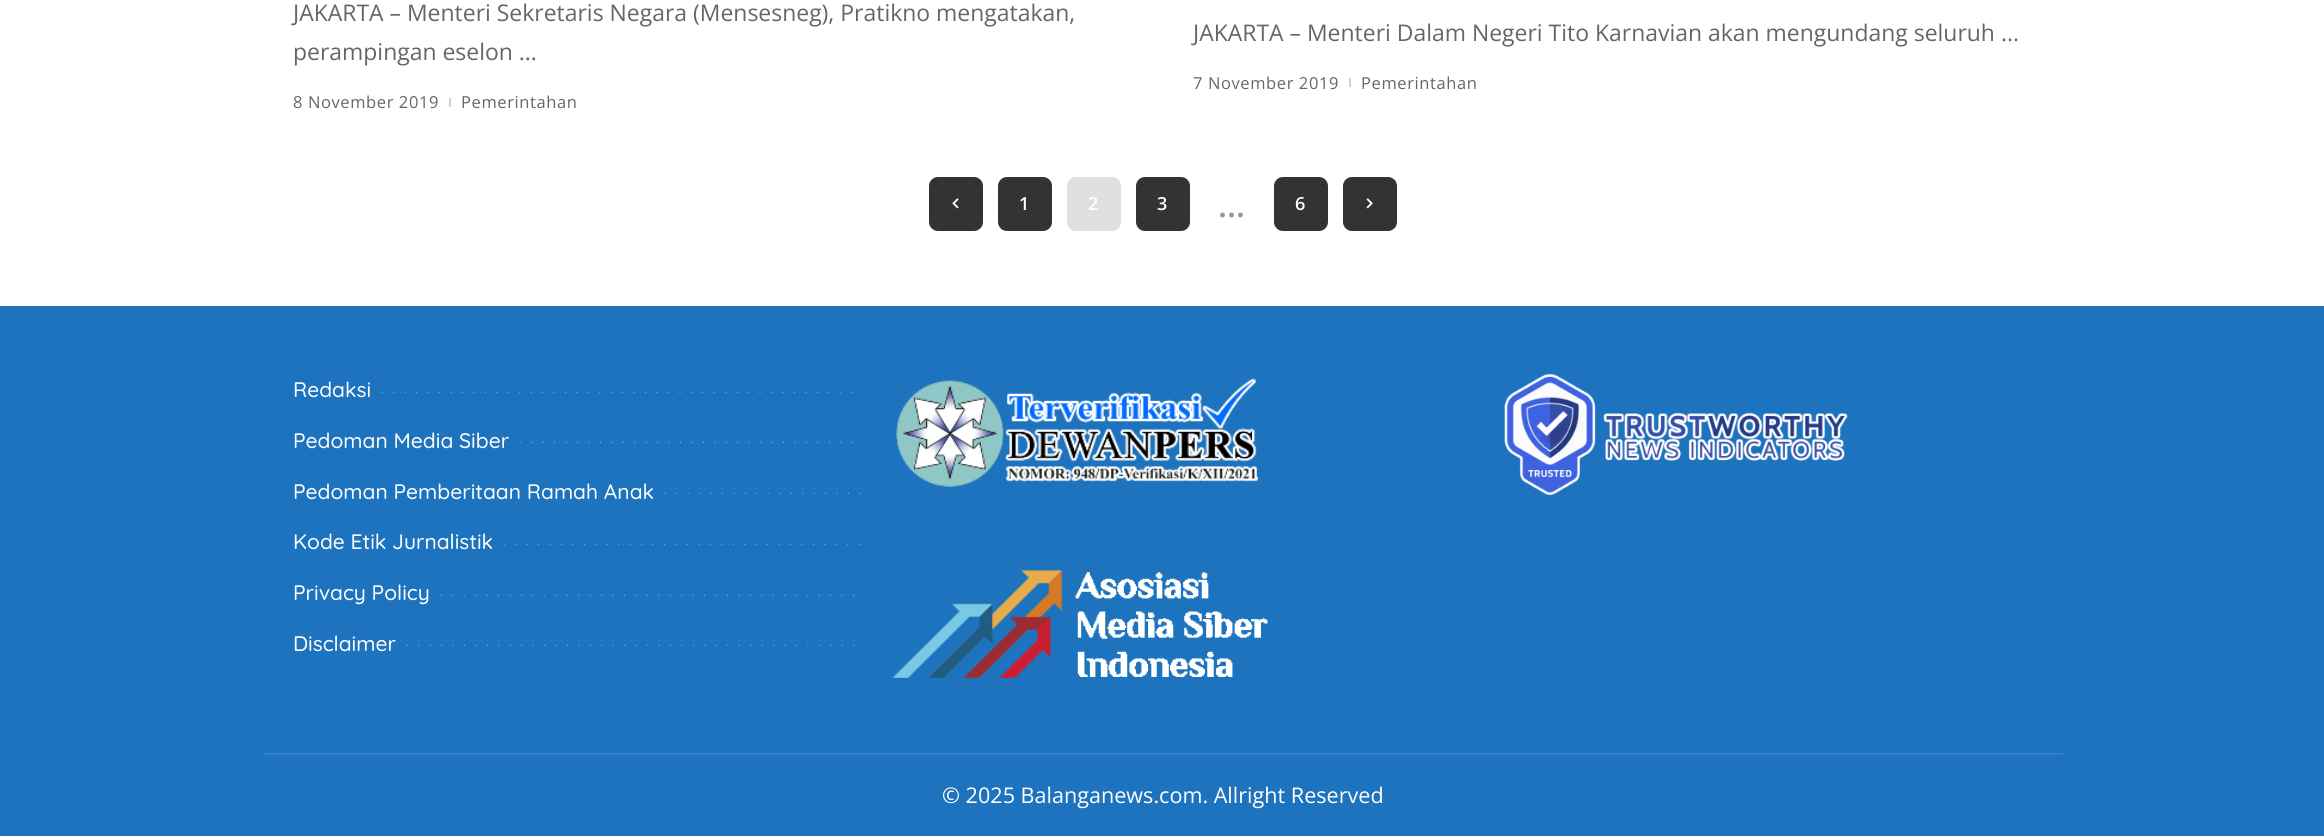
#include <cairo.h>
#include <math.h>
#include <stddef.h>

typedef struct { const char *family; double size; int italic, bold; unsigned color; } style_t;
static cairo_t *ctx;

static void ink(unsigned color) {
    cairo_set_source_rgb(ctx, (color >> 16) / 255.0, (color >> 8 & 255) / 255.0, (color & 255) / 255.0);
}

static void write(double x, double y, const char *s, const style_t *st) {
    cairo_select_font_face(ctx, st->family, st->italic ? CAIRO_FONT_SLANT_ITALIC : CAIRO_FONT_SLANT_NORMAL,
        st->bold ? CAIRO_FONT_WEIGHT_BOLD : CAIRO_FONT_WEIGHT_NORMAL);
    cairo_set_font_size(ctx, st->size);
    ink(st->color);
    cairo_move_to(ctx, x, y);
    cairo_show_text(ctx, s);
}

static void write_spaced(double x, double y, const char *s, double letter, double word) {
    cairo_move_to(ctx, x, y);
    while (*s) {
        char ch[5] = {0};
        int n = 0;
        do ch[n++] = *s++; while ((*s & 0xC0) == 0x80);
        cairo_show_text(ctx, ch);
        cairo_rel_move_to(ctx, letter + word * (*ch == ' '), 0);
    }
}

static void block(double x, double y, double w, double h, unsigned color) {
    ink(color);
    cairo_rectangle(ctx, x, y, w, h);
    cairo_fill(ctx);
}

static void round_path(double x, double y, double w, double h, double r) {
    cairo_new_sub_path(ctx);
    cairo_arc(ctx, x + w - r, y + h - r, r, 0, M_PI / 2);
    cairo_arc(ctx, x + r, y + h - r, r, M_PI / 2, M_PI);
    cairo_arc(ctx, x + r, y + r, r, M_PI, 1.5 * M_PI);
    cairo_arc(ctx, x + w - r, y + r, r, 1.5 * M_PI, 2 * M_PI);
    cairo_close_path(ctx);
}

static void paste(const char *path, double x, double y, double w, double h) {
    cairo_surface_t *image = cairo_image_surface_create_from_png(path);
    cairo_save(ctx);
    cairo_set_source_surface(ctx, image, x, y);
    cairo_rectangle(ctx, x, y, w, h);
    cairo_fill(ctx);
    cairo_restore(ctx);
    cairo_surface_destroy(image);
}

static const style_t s1 = {"Open Sans", 22.95, 0, 0, 0x666666};
static const style_t s2 = {"Open Sans SemiBold", 18, 0, 0, 0xffffff};
static const style_t s3 = {"Open Sans SemiBold", 33, 0, 0, 0x999999};
static const style_t s4 = {"Quicksand Medium", 21, 0, 0, 0xffffff};
static const style_t s5 = {"Open Sans", 21.6, 0, 0, 0xffffff};

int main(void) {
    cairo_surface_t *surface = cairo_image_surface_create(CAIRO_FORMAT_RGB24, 2324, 836);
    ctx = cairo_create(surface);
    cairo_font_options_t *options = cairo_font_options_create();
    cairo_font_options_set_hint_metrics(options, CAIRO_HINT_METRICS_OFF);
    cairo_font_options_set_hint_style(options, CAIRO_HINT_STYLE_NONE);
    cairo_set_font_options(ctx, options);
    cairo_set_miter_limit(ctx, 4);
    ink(0xffffff);
    cairo_paint(ctx);
    write(293, 21, "JAKARTA – Menteri Sekretaris Negara (Mensesneg), Pratikno mengatakan,", &s1);
    write(293, 60, "perampingan eselon ...", &s1);
    cairo_set_font_size(ctx, 16.5);
    write_spaced(293, 108, "8 November 2019", 0.6, 0);
    block(449, 98, 2, 9, 0xd1d1d1);
    ink(0x666666);
    write_spaced(461, 108, "Pemerintahan", 0.6, 0);
    write(1193, 41, "JAKARTA – Menteri Dalam Negeri Tito Karnavian akan mengundang seluruh ...", &s1);
    cairo_set_font_size(ctx, 16.5);
    write_spaced(1193, 89, "7 November 2019", 0.6, 0);
    block(1349, 78, 2, 9, 0xd1d1d1);
    ink(0x666666);
    write_spaced(1361, 89, "Pemerintahan", 0.6, 0);
    ink(0x333333);
    round_path(929, 177, 54, 54, 9);
    cairo_fill(ctx);
    paste("pic1.png", 952, 198, 7, 11);
    round_path(998, 177, 54, 54, 9);
    cairo_fill(ctx);
    write(1019, 210, "1", &s2);
    ink(0xe0e0e0);
    round_path(1067, 177, 54, 54, 9);
    cairo_fill(ctx);
    write(1088, 210, "2", &s2);
    ink(0x333333);
    round_path(1136, 177, 54, 54, 9);
    cairo_fill(ctx);
    write(1157, 210, "3", &s2);
    ink(0x333333);
    round_path(1274, 177, 54, 54, 9);
    cairo_fill(ctx);
    write(1295, 210, "6", &s2);
    ink(0x333333);
    round_path(1343, 177, 54, 54, 9);
    cairo_fill(ctx);
    paste("pic2.png", 1366, 198, 7, 11);
    write(1218, 217, "…", &s3);
    block(0, 306, 2324, 530, 0x1e73be);
    write(293, 397, "Redaksi", &s4);
    cairo_set_font_size(ctx, 12);
    ink(0x78abd8);
    write_spaced(381, 393, "..........................................", 9, 0);
    write(293, 448, "Pedoman Media Siber", &s4);
    cairo_set_font_size(ctx, 12);
    ink(0x78abd8);
    write_spaced(519, 443, "..............................", 9, 0);
    write(293, 499, "Pedoman Pemberitaan Ramah Anak", &s4);
    cairo_set_font_size(ctx, 12);
    ink(0x78abd8);
    write_spaced(664, 494, "..................", 9, 0);
    write(293, 549, "Kode Etik Jurnalistik", &s4);
    cairo_set_font_size(ctx, 12);
    ink(0x78abd8);
    write_spaced(503, 545, "................................", 9, 0);
    write(293, 600, "Privacy Policy", &s4);
    cairo_set_font_size(ctx, 12);
    ink(0x78abd8);
    write_spaced(440, 596, ".....................................", 9, 0);
    write(293, 651, "Disclaimer", &s4);
    cairo_set_font_size(ctx, 12);
    ink(0x78abd8);
    write_spaced(406, 646, "........................................", 9, 0);
    paste("pic3.png", 896, 378, 363, 109);
    paste("pic4.png", 892, 570, 376, 108);
    paste("pic5.png", 1504, 373, 344, 122);
    block(263, 753, 1800, 2, 0x3581c5);
    write(942, 803, "© 2025 Balanganews.com. Allright Reserved", &s5);
    cairo_surface_write_to_png(surface, "screenshot.png");
    cairo_font_options_destroy(options);
    cairo_destroy(ctx);
    cairo_surface_destroy(surface);
    return 0;
}
